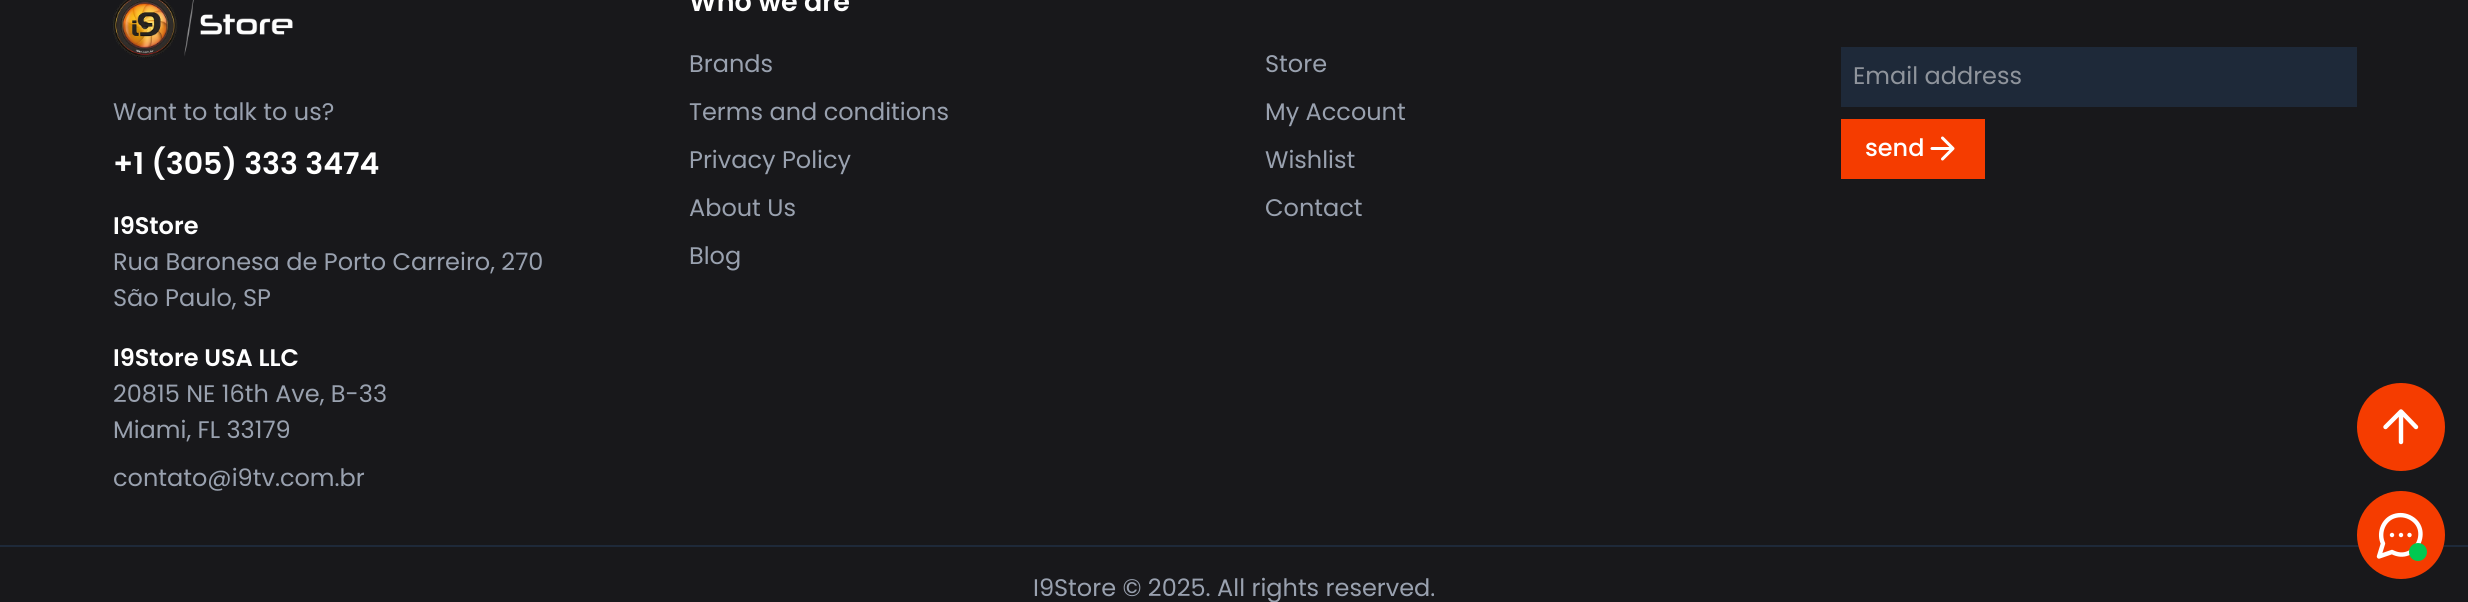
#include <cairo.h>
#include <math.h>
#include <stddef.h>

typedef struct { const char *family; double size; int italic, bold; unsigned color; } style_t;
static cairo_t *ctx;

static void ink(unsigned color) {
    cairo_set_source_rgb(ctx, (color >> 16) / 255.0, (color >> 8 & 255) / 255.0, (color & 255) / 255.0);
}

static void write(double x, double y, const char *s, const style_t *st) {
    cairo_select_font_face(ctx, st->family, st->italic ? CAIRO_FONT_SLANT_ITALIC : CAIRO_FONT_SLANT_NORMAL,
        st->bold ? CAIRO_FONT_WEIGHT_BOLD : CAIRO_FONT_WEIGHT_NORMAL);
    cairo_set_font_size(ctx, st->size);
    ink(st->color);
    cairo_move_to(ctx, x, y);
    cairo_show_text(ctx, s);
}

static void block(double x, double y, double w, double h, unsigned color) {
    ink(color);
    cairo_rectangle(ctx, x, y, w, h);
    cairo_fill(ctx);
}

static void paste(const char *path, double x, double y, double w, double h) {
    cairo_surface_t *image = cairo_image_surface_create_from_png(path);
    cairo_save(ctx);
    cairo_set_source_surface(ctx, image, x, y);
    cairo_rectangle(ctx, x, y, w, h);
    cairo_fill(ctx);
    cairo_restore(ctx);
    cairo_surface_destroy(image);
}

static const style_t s1 = {"Poppins", 24, 0, 0, 0x99a1af};
static const style_t s2 = {"Poppins SemiBold", 30, 0, 0, 0xffffff};
static const style_t s3 = {"Poppins SemiBold", 24, 0, 0, 0xffffff};
static const style_t s4 = {"Poppins SemiBold", 27, 0, 0, 0xffffff};
static const style_t s5 = {"Poppins", 24, 0, 0, 0x8f949c};
static const style_t s6 = {"Poppins Medium", 24, 0, 0, 0xffffff};

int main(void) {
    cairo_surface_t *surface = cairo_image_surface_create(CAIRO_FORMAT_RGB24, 2468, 602);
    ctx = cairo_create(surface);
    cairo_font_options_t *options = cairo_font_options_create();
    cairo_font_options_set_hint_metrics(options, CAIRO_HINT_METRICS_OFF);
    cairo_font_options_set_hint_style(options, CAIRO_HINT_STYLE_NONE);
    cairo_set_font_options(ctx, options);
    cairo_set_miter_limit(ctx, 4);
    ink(0x18181b);
    cairo_paint(ctx);
    paste("pic1.png", 112, 0, 181, 58);
    write(113, 120, "Want to talk to us?", &s1);
    write(113, 174, "+1 (305) 333 3474", &s2);
    write(113, 234, "I9Store", &s3);
    write(113, 270, "Rua Baronesa de Porto Carreiro, 270", &s1);
    write(113, 306, "São Paulo, SP", &s1);
    write(113, 366, "I9Store USA LLC", &s3);
    write(113, 402, "20815 NE 16th Ave, B-33", &s1);
    write(113, 438, "Miami, FL 33179", &s1);
    write(113, 486, "contato@i9tv.com.br", &s1);
    write(689, 11, "Who we are", &s4);
    write(689, 72, "Brands", &s1);
    write(689, 120, "Terms and conditions", &s1);
    write(689, 168, "Privacy Policy", &s1);
    write(689, 216, "About Us", &s1);
    write(689, 264, "Blog", &s1);
    write(1265, 72, "Store", &s1);
    write(1265, 120, "My Account", &s1);
    write(1265, 168, "Wishlist", &s1);
    write(1265, 216, "Contact", &s1);
    block(1841, 47, 516, 60, 0x1e2939);
    write(1853, 84, "Email address", &s5);
    block(1841, 119, 144, 60, 0xf53c00);
    write(1865, 156, "send", &s6);
    cairo_new_path(ctx);
    cairo_move_to(ctx, 1932, 148.5);
    cairo_line_to(ctx, 1953, 148.5);
    cairo_move_to(ctx, 1942.5, 138);
    cairo_line_to(ctx, 1953, 148.5);
    cairo_line_to(ctx, 1942.5, 159);
    cairo_set_line_width(ctx, 3);
    cairo_set_line_cap(ctx, CAIRO_LINE_CAP_ROUND);
    cairo_set_line_join(ctx, CAIRO_LINE_JOIN_ROUND);
    cairo_stroke(ctx);
    block(0, 545, 2468, 2, 0x1e2939);
    write(1033, 596, "I9Store © 2025. All rights reserved.", &s1);
    ink(0xf53c00);
    cairo_new_path(ctx);
    cairo_arc(ctx, 2401, 427, 44, 0, 2 * M_PI);
    cairo_fill(ctx);
    cairo_new_path(ctx);
    cairo_move_to(ctx, 2385.5, 427);
    cairo_line_to(ctx, 2401, 411.5);
    cairo_line_to(ctx, 2416, 427);
    cairo_move_to(ctx, 2401, 442);
    cairo_line_to(ctx, 2401, 411.5);
    ink(0xffffff);
    cairo_set_line_width(ctx, 4.4);
    cairo_stroke(ctx);
    ink(0xf53c00);
    cairo_arc(ctx, 2401, 535, 44, 0, 2 * M_PI);
    cairo_fill(ctx);
    cairo_new_path(ctx);
    cairo_move_to(ctx, 2392, 552);
    cairo_curve_to(ctx, 2415.5, 564.5, 2433, 528, 2409, 517);
    cairo_curve_to(ctx, 2403.5, 514.5, 2397.5, 514.5, 2392, 517);
    cairo_curve_to(ctx, 2382.5, 521.5, 2378.5, 534, 2383, 543.5);
    cairo_line_to(ctx, 2379, 556.5);
    cairo_close_path(ctx);
    cairo_move_to(ctx, 2392, 535);
    cairo_line_to(ctx, 2392, 535);
    cairo_move_to(ctx, 2401, 535);
    cairo_line_to(ctx, 2401, 535);
    cairo_move_to(ctx, 2409.5, 535);
    cairo_line_to(ctx, 2409.5, 535);
    ink(0xffffff);
    cairo_stroke(ctx);
    ink(0x00c951);
    cairo_arc(ctx, 2418, 552, 9, 0, 2 * M_PI);
    cairo_fill(ctx);
    cairo_surface_write_to_png(surface, "screenshot.png");
    cairo_font_options_destroy(options);
    cairo_destroy(ctx);
    cairo_surface_destroy(surface);
    return 0;
}
